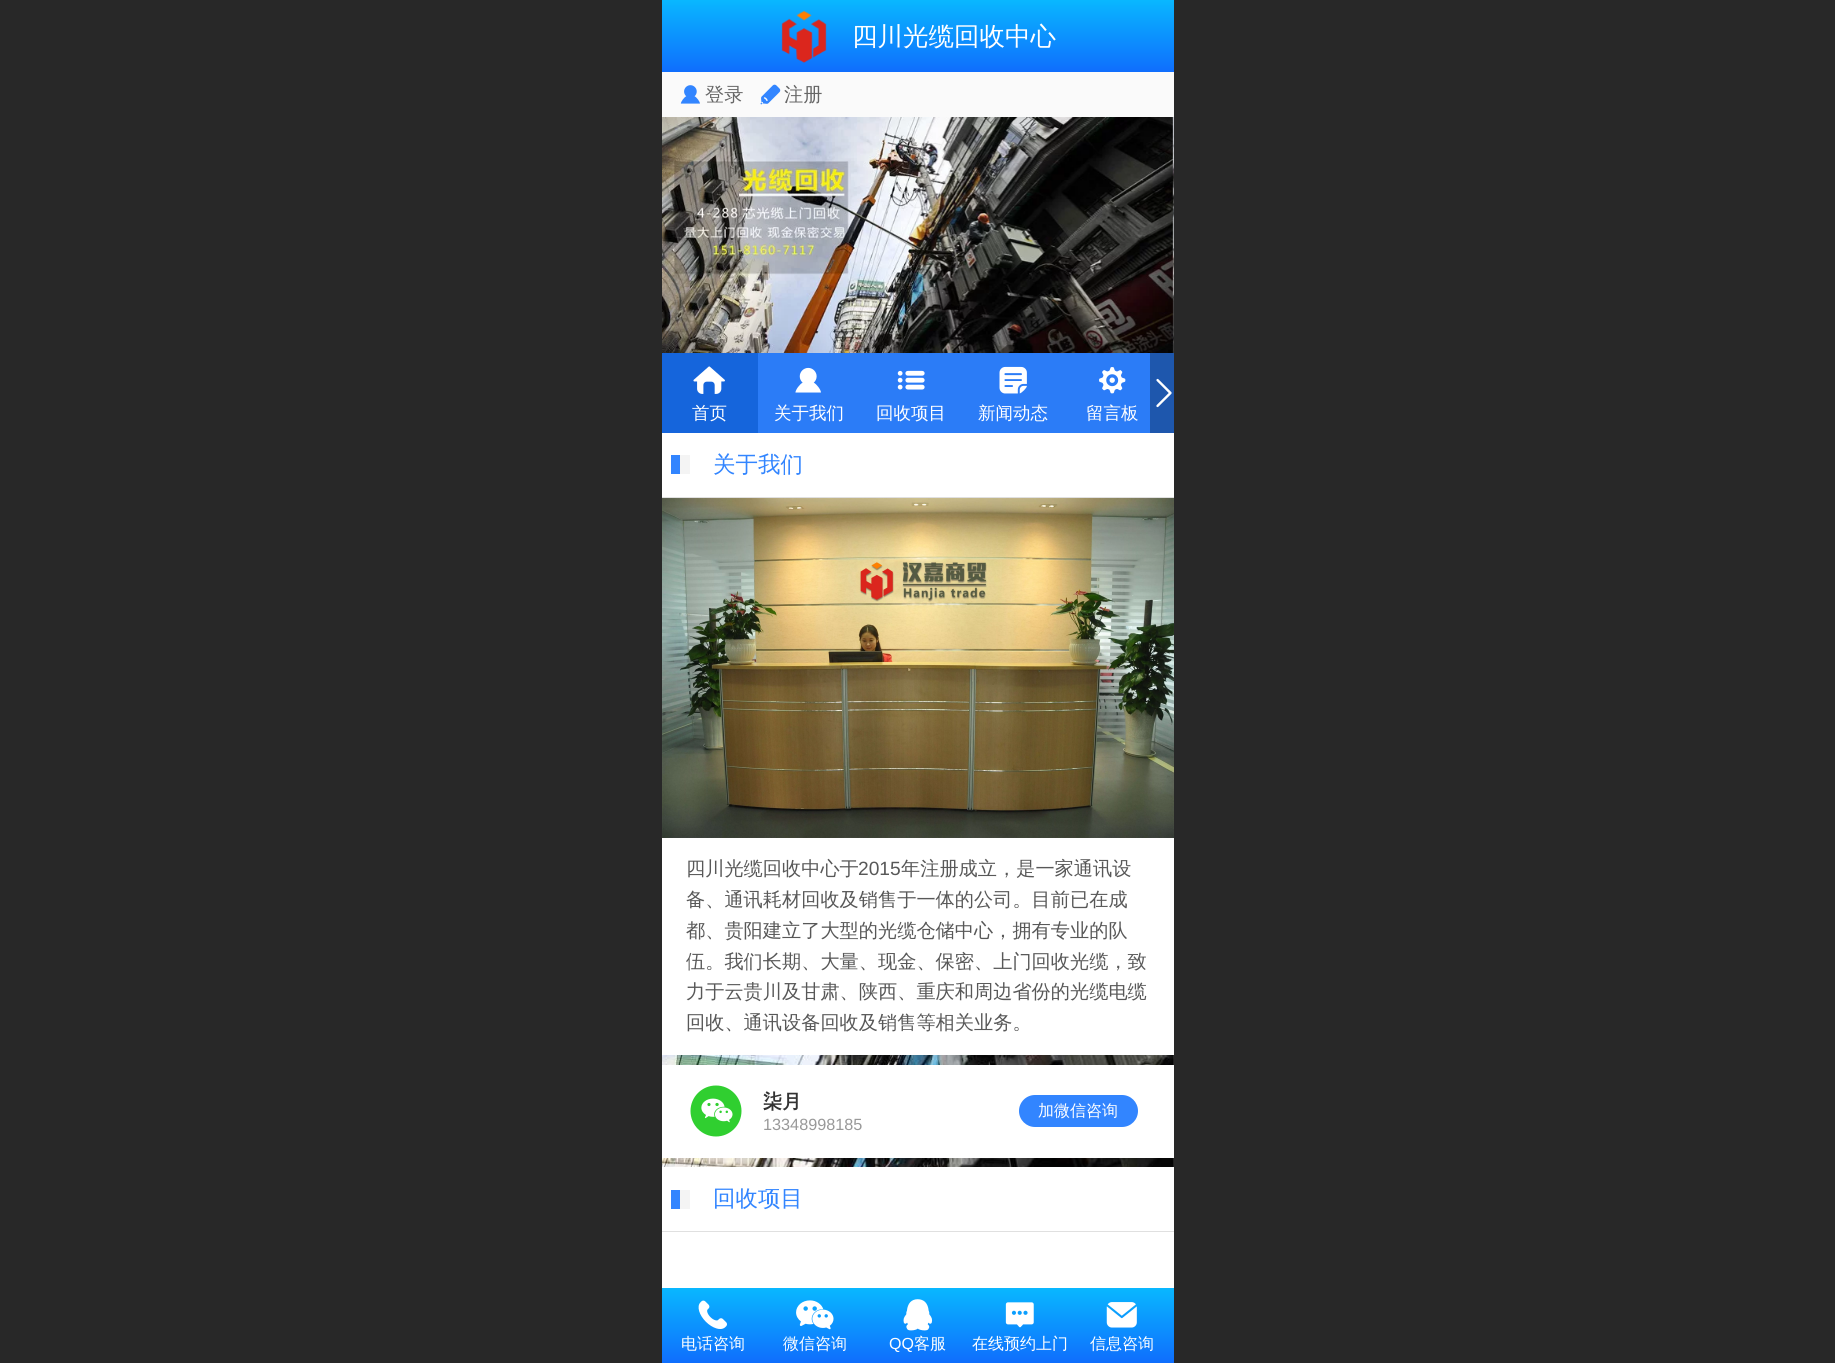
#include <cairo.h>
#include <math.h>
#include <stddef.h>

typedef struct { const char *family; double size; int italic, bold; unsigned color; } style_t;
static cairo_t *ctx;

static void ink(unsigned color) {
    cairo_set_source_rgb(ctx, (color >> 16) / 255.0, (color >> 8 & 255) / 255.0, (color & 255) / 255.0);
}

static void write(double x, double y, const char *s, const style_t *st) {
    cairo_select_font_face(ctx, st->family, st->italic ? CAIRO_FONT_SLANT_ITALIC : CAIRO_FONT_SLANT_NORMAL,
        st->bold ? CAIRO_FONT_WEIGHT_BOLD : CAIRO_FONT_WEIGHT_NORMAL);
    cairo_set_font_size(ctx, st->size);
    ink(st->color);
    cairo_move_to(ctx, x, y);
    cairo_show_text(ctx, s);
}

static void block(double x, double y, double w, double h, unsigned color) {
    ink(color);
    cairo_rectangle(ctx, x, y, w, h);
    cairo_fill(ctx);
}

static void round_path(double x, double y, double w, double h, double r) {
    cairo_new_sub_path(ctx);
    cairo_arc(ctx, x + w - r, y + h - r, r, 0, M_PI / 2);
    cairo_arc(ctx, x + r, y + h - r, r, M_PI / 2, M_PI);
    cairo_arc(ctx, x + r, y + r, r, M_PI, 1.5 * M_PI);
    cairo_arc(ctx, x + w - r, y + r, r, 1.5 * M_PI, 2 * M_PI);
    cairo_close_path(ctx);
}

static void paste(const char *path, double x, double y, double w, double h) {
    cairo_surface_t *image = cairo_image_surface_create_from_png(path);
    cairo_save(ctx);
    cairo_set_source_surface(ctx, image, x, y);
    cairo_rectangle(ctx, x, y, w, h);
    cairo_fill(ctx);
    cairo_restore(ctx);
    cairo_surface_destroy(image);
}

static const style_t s1 = {"WenQuanYi Zen Hei Medium", 25.5, 0, 0, 0xffffff};
static const style_t s2 = {"WenQuanYi Zen Hei Medium", 19.2, 0, 0, 0x666666};
static const style_t s3 = {"WenQuanYi Zen Hei Medium", 17.5, 0, 0, 0xffffff};
static const style_t s4 = {"WenQuanYi Zen Hei Medium", 22.5, 0, 0, 0x3285ff};
static const style_t s5 = {"WenQuanYi Zen Hei Medium", 19.2, 0, 0, 0x585858};
static const style_t s6 = {"Liberation Sans", 19.2, 0, 0, 0x585858};
static const style_t s7 = {"WenQuanYi Zen Hei", 19.2, 0, 1, 0x333333};
static const style_t s8 = {"Liberation Sans", 16.25, 0, 0, 0x999999};
static const style_t s9 = {"WenQuanYi Zen Hei Medium", 16, 0, 0, 0xffffff};
static const style_t s10 = {"Liberation Sans", 16, 0, 0, 0xffffff};

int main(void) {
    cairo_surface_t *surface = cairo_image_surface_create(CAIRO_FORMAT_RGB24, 1835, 1363);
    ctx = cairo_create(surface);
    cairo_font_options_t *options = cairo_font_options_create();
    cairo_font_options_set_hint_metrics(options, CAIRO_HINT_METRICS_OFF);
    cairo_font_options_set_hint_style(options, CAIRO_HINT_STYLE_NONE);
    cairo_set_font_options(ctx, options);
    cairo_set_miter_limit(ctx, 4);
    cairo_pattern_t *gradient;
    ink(0xffffff);
    cairo_paint(ctx);
    block(0, 0, 662, 1363, 0x282828);
    gradient = cairo_pattern_create_linear(662, 72, 662, 0);
    cairo_pattern_add_color_stop_rgba(gradient, 0, 0.059, 0.431, 0.992, 1);
    cairo_pattern_add_color_stop_rgba(gradient, 1, 0.035, 0.718, 1, 1);
    cairo_set_source(ctx, gradient);
    cairo_pattern_destroy(gradient);
    cairo_rectangle(ctx, 662, 0, 512, 72);
    cairo_fill(ctx);
    paste("pic1.png", 781, 10, 46, 53);
    write(852, 45, "四川光缆回收中心", &s1);
    block(662, 72, 512, 45, 0xfafafa);
    paste("pic2.png", 680, 85, 20, 19);
    write(705, 101, "登录", &s2);
    paste("pic3.png", 760, 84, 21, 21);
    write(784, 101, "注册", &s2);
    paste("pic14.png", 662, 117, 512, 1050);
    paste("pic4.png", 662, 117, 256, 118);
    paste("pic5.png", 918, 117, 256, 118);
    paste("pic6.png", 662, 235, 256, 118);
    paste("pic7.png", 918, 235, 256, 118);
    block(758, 353, 392, 80, 0x2b7cf7);
    block(662, 353, 96, 80, 0x1565dc);
    paste("pic8.png", 693, 366, 32, 28);
    write(692, 419, "首页", &s3);
    paste("pic9.png", 795, 367, 26, 26);
    write(774, 419, "关于我们", &s3);
    paste("pic10.png", 897, 370, 28, 20);
    write(876, 419, "回收项目", &s3);
    paste("pic11.png", 999, 366, 28, 28);
    write(978, 419, "新闻动态", &s3);
    paste("pic12.png", 1099, 367, 27, 27);
    write(1086, 419, "留言板", &s3);
    block(1150, 353, 24, 80, 0x1e57ad);
    paste("pic13.png", 1156, 378, 16, 30);
    block(662, 433, 512, 64, 0xffffff);
    block(662, 497, 512, 1, 0xe0e0e0);
    block(671, 455, 9, 19, 0x3285ff);
    block(680, 455, 10, 19, 0xf4f4f4);
    write(713, 472, "关于我们", &s4);
    block(662, 838, 512, 217, 0xffffff);
    paste("pic15.png", 662, 498, 512, 340);
    write(686, 875, "四川光缆回收中心于", &s5);
    write(858, 875, "2015", &s6);
    write(901, 875, "年注册成立，是一家通讯设", &s5);
    write(686, 906, "备、通讯耗材回收及销售于一体的公司。目前已在成", &s5);
    write(686, 937, "都、贵阳建立了大型的光缆仓储中心，拥有专业的队", &s5);
    write(686, 968, "伍。我们长期、大量、现金、保密、上门回收光缆，致", &s5);
    write(686, 998, "力于云贵川及甘肃、陕西、重庆和周边省份的光缆电缆", &s5);
    write(686, 1029, "回收、通讯设备回收及销售等相关业务。", &s5);
    block(662, 1065, 512, 93, 0xffffff);
    paste("pic16.png", 690, 1085, 52, 52);
    write(763, 1108, "柒月", &s7);
    write(763, 1130, "13348998185", &s8);
    ink(0x3285ff);
    round_path(1019, 1095, 119, 32, 16);
    cairo_fill(ctx);
    write(1038, 1116, "加微信咨询", &s9);
    block(662, 1231, 512, 1, 0xe0e0e0);
    block(671, 1190, 9, 19, 0x3285ff);
    block(680, 1190, 10, 19, 0xf4f4f4);
    write(713, 1206, "回收项目", &s4);
    gradient = cairo_pattern_create_linear(662, 1363, 662, 1288);
    cairo_pattern_add_color_stop_rgba(gradient, 0, 0.059, 0.431, 0.992, 1);
    cairo_pattern_add_color_stop_rgba(gradient, 1, 0.035, 0.718, 1, 1);
    cairo_set_source(ctx, gradient);
    cairo_pattern_destroy(gradient);
    cairo_rectangle(ctx, 662, 1288, 512, 75);
    cairo_fill(ctx);
    paste("pic17.png", 698, 1300, 29, 29);
    write(681, 1349, "电话咨询", &s9);
    paste("pic18.png", 796, 1300, 38, 30);
    write(783, 1349, "微信咨询", &s9);
    paste("pic19.png", 903, 1299, 30, 32);
    write(889, 1349, "QQ", &s10);
    write(914, 1349, "客服", &s9);
    paste("pic20.png", 1005, 1302, 29, 26);
    write(972, 1349, "在线预约上门", &s9);
    paste("pic21.png", 1106, 1302, 31, 26);
    write(1090, 1349, "信息咨询", &s9);
    block(1174, 0, 661, 1363, 0x282828);
    cairo_surface_write_to_png(surface, "screenshot.png");
    cairo_font_options_destroy(options);
    cairo_destroy(ctx);
    cairo_surface_destroy(surface);
    return 0;
}
